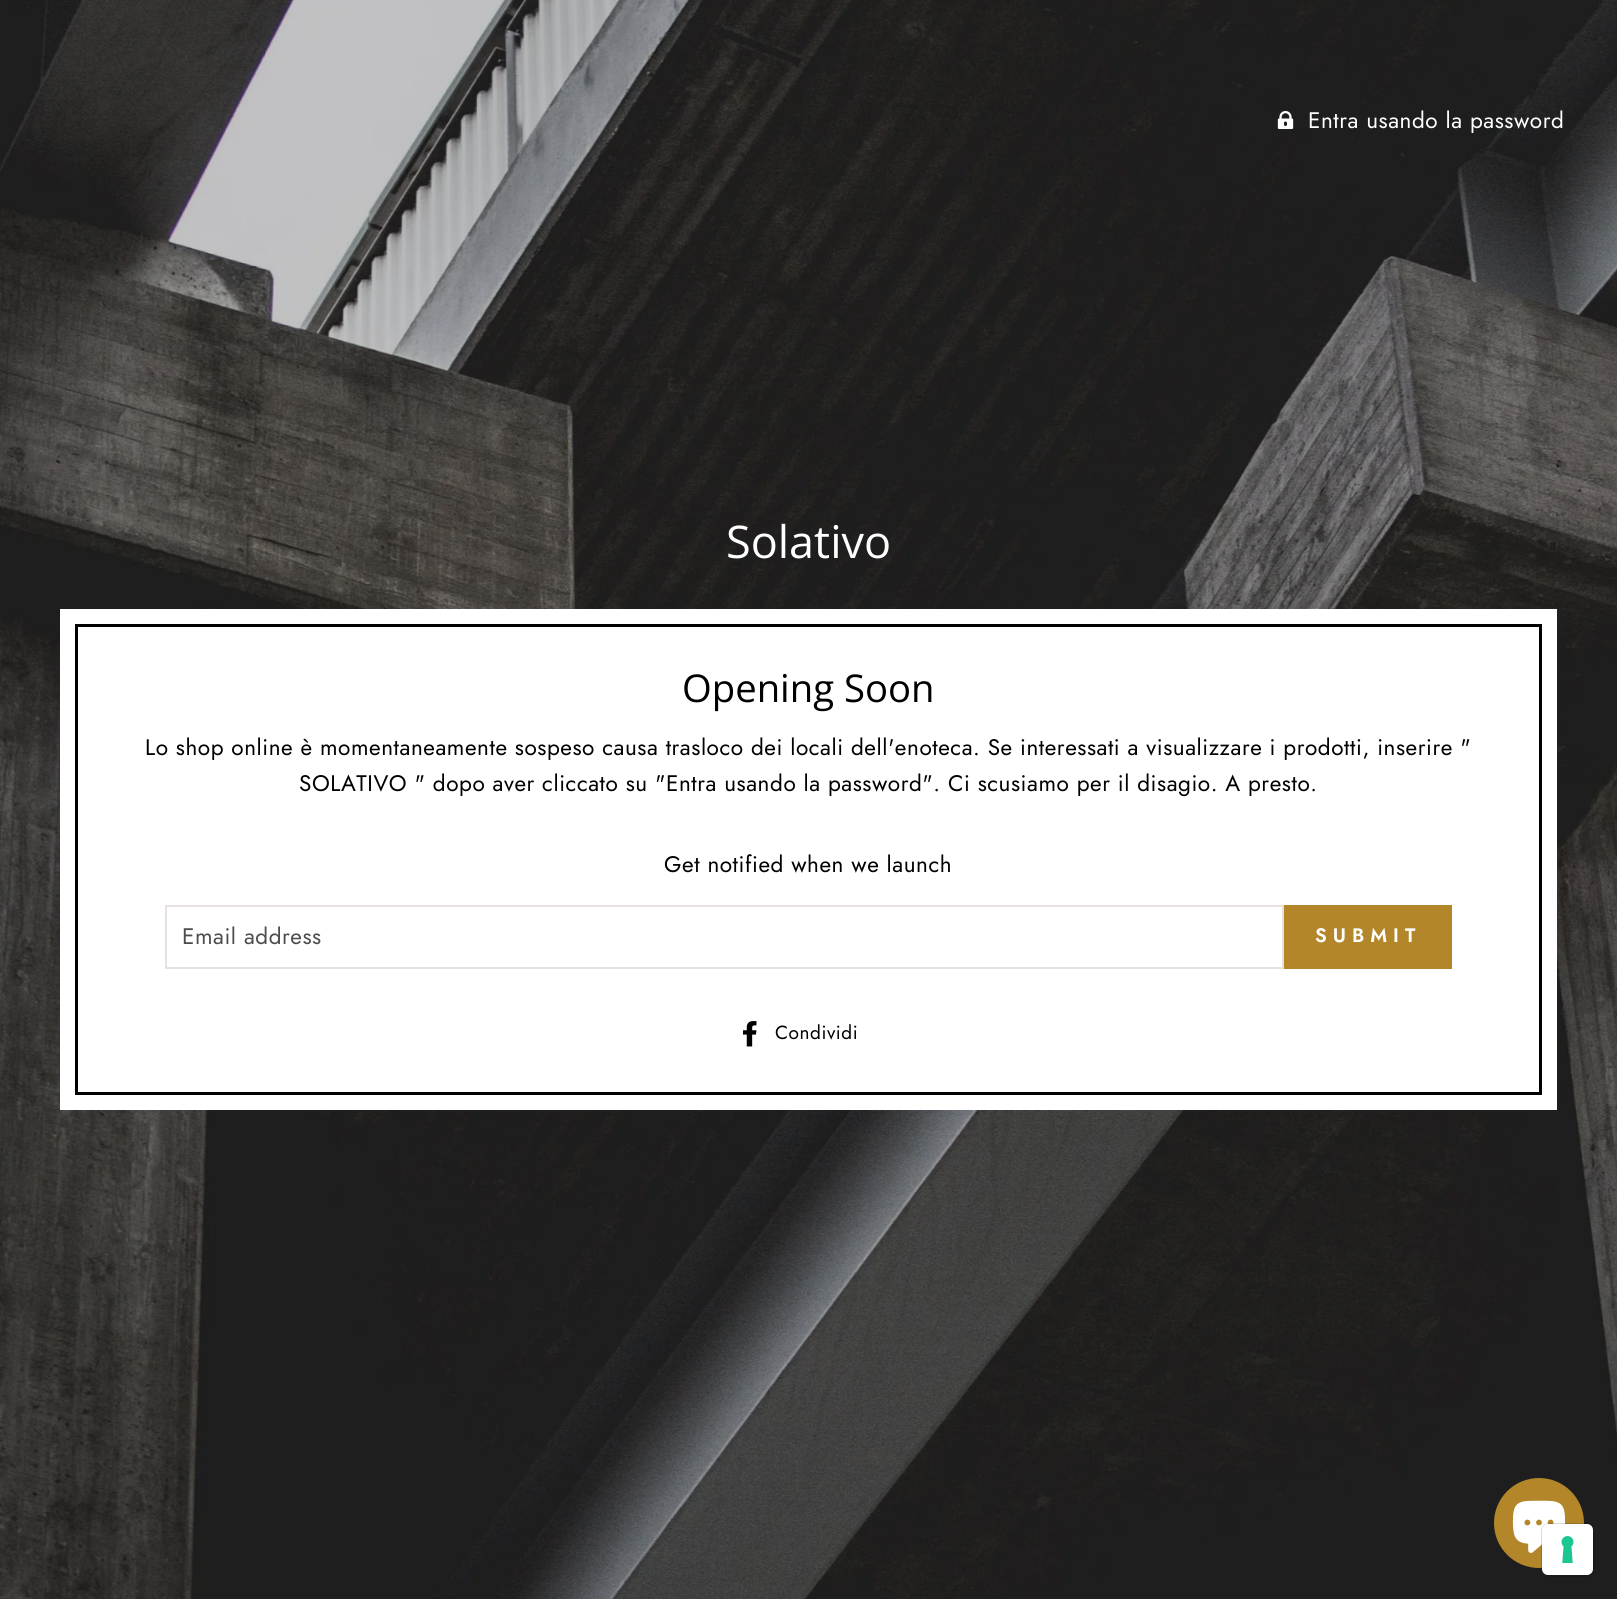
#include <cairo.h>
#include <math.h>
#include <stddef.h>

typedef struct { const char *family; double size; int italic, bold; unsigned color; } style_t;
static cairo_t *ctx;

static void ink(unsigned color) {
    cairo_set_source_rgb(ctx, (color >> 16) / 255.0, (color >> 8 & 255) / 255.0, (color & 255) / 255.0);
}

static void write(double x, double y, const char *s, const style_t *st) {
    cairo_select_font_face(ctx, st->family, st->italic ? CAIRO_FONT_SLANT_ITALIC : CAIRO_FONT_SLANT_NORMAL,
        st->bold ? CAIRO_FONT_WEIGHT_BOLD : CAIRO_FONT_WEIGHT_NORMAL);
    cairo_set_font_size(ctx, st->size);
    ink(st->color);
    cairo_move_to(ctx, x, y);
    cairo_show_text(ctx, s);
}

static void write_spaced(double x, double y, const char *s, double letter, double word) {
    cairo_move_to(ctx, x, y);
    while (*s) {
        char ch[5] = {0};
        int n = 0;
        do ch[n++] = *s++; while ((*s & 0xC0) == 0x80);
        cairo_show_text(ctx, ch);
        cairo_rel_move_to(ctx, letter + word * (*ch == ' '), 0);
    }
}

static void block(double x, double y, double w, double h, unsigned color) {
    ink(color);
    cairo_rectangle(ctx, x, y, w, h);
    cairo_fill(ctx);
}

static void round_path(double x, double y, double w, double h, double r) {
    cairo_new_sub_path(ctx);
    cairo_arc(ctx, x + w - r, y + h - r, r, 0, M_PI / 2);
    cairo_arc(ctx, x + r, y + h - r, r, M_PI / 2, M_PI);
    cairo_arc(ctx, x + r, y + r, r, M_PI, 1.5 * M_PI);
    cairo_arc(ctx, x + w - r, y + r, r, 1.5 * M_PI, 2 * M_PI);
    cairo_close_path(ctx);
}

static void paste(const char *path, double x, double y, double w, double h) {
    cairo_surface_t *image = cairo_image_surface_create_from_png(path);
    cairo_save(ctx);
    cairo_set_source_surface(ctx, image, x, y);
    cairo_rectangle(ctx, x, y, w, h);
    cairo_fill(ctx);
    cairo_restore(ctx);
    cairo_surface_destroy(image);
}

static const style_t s1 = {"Open Sans", 45, 0, 0, 0xffffff};
static const style_t s2 = {"Open Sans", 38.25, 0, 0, 0x000000};

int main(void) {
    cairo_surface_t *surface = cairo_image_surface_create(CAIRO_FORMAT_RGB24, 1617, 1599);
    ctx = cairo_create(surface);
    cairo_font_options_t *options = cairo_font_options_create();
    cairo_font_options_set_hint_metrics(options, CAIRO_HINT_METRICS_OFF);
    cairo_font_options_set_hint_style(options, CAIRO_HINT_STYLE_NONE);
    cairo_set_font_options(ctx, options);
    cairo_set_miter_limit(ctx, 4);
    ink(0xffffff);
    cairo_paint(ctx);
    paste("pic1.png", 0, 0, 1617, 1599);
    paste("pic2.png", 1277, 111, 17, 18);
    cairo_select_font_face(ctx, "Jost", CAIRO_FONT_SLANT_NORMAL, CAIRO_FONT_WEIGHT_NORMAL);
    cairo_set_font_size(ctx, 22.5);
    ink(0xffffff);
    write_spaced(1308, 128, "Entra usando la password", 0.56, 0);
    write(726, 558, "Solativo", &s1);
    block(60, 609, 1497, 501, 0xffffff);
    cairo_rectangle(ctx, 76.5, 625.5, 1464, 468);
    ink(0x000000);
    cairo_set_line_width(ctx, 3);
    cairo_stroke(ctx);
    write(682, 702, "Opening Soon", &s2);
    cairo_select_font_face(ctx, "Jost", CAIRO_FONT_SLANT_NORMAL, CAIRO_FONT_WEIGHT_NORMAL);
    cairo_set_font_size(ctx, 22.5);
    write_spaced(145, 755, "Lo shop online è momentaneamente sospeso causa trasloco dei locali dell'enoteca. Se interessati a visualizzare i prodotti, inserire \"", 0.56, 0);
    write_spaced(299, 791, "SOLATIVO \" dopo aver cliccato su \"Entra usando la password\". Ci scusiamo per il disagio. A presto.", 0.56, 0);
    write_spaced(664, 872, "Get notified when we launch", 0.56, 0);
    cairo_rectangle(ctx, 166, 906, 1117, 62);
    ink(0xe8e1e1);
    cairo_set_line_width(ctx, 2);
    cairo_stroke(ctx);
    ink(0x4d4d4d);
    write_spaced(182, 944, "Email address", 0.56, 0);
    block(1284, 905, 168, 64, 0xb3862a);
    cairo_select_font_face(ctx, "Jost SemiBold", CAIRO_FONT_SLANT_NORMAL, CAIRO_FONT_WEIGHT_NORMAL);
    cairo_set_font_size(ctx, 19.5);
    ink(0xffffff);
    write_spaced(1315, 942, "SUBMIT", 6, 0);
    paste("pic3.png", 743, 1021, 14, 26);
    cairo_select_font_face(ctx, "Jost", CAIRO_FONT_SLANT_NORMAL, CAIRO_FONT_WEIGHT_NORMAL);
    cairo_set_font_size(ctx, 19);
    ink(0x000000);
    write_spaced(775, 1039, "Condividi", 0.56, 0);
    ink(0xb3862a);
    cairo_new_path(ctx);
    cairo_arc(ctx, 1539, 1523, 45, 0, 2 * M_PI);
    cairo_fill(ctx);
    paste("pic4.png", 1512, 1500, 54, 53);
    round_path(1542, 1524, 52, 52, 7);
    cairo_set_source_rgba(ctx, 0, 0, 0, 0.15);
    cairo_stroke(ctx);
    ink(0xffffff);
    round_path(1542, 1524, 51, 51, 6);
    cairo_fill(ctx);
    paste("pic5.png", 1561, 1536, 13, 27);
    cairo_surface_write_to_png(surface, "screenshot.png");
    cairo_font_options_destroy(options);
    cairo_destroy(ctx);
    cairo_surface_destroy(surface);
    return 0;
}
